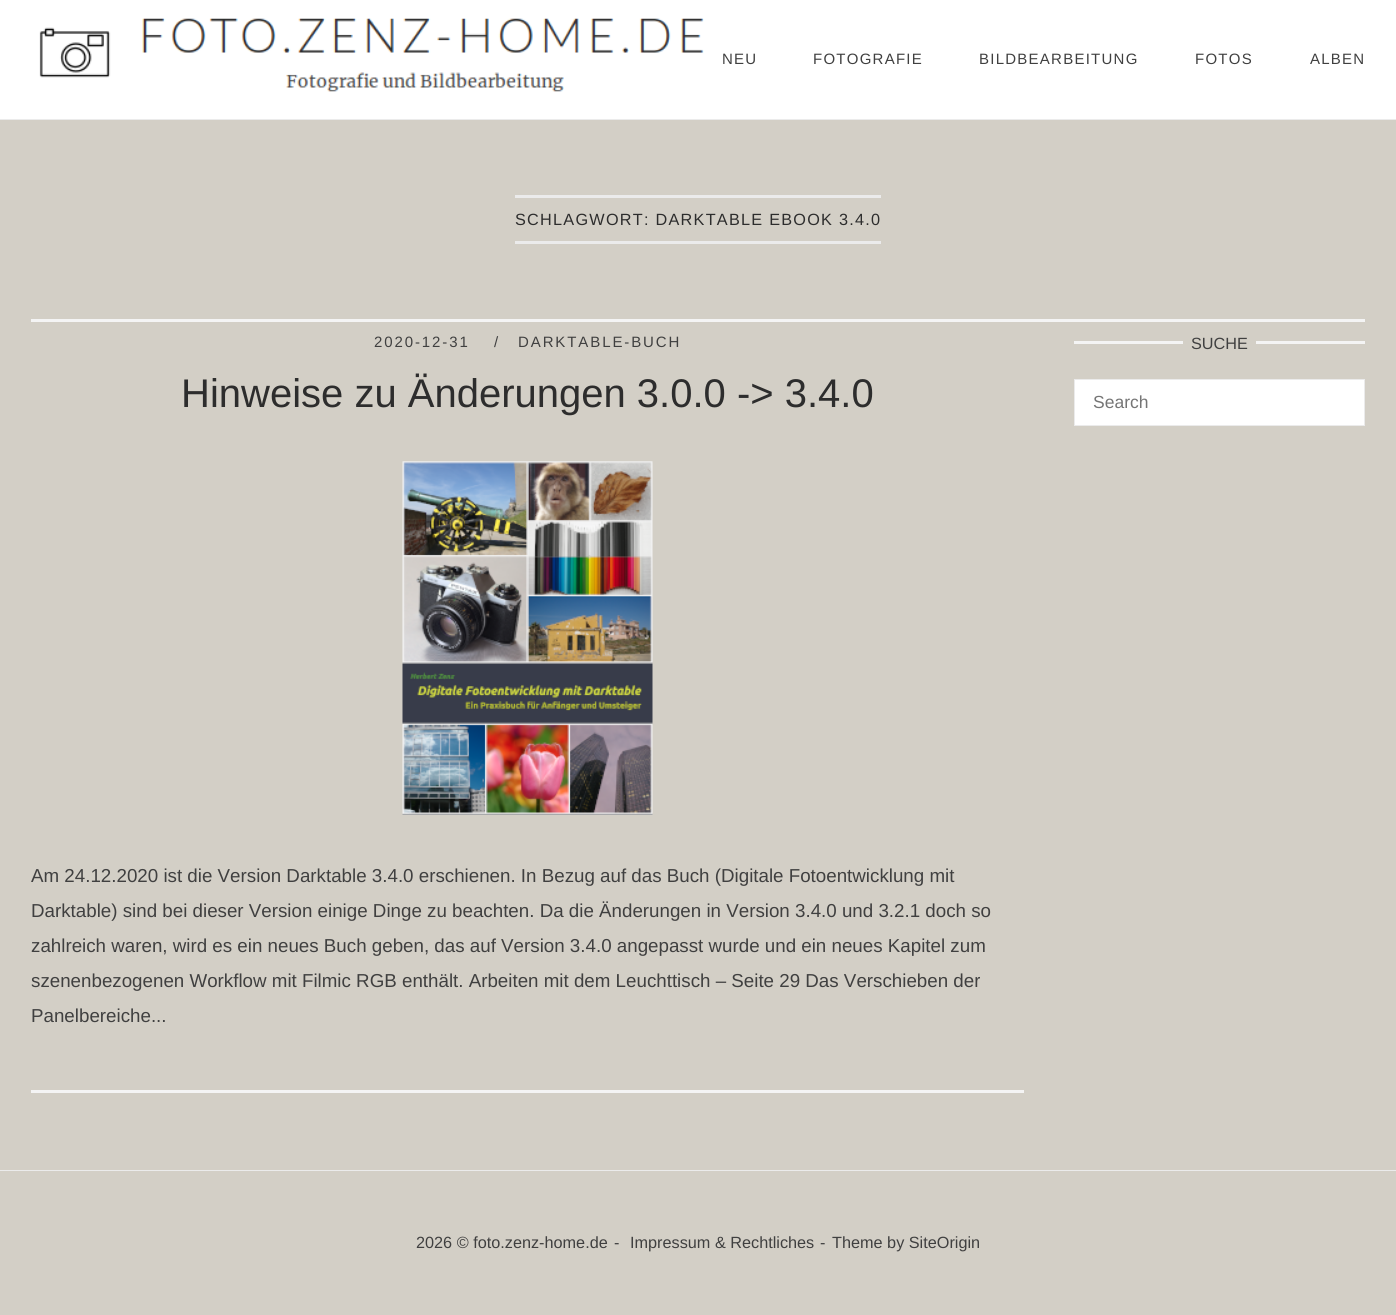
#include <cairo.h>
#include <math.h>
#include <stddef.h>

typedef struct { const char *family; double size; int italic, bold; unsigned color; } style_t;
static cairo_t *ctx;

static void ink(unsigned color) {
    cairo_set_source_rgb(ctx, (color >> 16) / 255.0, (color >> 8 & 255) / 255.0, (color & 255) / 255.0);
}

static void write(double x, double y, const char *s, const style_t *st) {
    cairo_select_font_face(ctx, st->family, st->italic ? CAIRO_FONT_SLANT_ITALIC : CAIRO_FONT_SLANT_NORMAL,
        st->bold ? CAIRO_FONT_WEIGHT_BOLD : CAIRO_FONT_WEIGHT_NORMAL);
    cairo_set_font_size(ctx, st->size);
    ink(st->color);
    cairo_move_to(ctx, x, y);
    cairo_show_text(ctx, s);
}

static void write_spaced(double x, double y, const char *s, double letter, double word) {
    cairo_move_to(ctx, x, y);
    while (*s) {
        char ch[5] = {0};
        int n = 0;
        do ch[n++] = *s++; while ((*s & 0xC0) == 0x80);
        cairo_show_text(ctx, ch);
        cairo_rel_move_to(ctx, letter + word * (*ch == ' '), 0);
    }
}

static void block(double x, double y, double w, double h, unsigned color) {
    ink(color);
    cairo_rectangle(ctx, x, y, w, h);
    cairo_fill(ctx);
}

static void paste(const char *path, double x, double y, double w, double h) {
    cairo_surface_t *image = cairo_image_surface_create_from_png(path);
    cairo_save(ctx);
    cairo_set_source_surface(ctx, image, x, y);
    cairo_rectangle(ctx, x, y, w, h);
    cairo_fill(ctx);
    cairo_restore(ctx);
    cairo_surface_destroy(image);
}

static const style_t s1 = {"Liberation Sans", 40, 0, 0, 0x2d2d2d};
static const style_t s2 = {"Liberation Sans", 18.75, 0, 0, 0x404040};
static const style_t s3 = {"Liberation Sans", 16.25, 0, 0, 0x404040};
static const style_t s4 = {"Liberation Sans", 17.5, 0, 0, 0x757575};

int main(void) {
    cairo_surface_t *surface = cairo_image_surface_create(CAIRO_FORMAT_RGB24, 1396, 1315);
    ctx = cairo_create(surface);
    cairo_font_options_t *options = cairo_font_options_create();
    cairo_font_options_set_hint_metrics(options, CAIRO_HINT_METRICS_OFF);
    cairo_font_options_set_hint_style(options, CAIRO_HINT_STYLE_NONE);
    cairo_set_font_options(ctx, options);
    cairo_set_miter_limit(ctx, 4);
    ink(0xd3cfc6);
    cairo_paint(ctx);
    block(0, 119, 1396, 1, 0xebebeb);
    block(0, 0, 1396, 119, 0xffffff);
    paste("pic1.png", 39, 18, 665, 74);
    cairo_select_font_face(ctx, "Liberation Sans", CAIRO_FONT_SLANT_NORMAL, CAIRO_FONT_WEIGHT_NORMAL);
    cairo_set_font_size(ctx, 15);
    ink(0x404040);
    write_spaced(722, 64, "NEU", 1.25, 0);
    write_spaced(813, 64, "FOTOGRAFIE", 1.25, 0);
    write_spaced(979, 64, "BILDBEARBEITUNG", 1.25, 0);
    write_spaced(1195, 64, "FOTOS", 1.25, 0);
    write_spaced(1310, 64, "ALBEN", 1.25, 0);
    block(31, 319, 1334, 3, 0xf4f4f4);
    block(515, 195, 366, 3, 0xebebeb);
    block(515, 241, 366, 3, 0xebebeb);
    cairo_set_font_size(ctx, 16.25);
    ink(0x2d2d2d);
    write_spaced(515, 225, "SCHLAGWORT: DARKTABLE EBOOK 3.4.0", 1.25, 0);
    block(31, 1090, 993, 3, 0xf4f4f4);
    cairo_set_font_size(ctx, 15);
    ink(0x404040);
    write_spaced(374, 347, "2020-12-31", 1.9, 0);
    write_spaced(494, 347, "/", 1.9, 0);
    write_spaced(518, 347, "DARKTABLE-BUCH", 1.9, 0);
    write(181, 407, "Hinweise zu Änderungen 3.0.0 -> 3.4.0", &s1);
    paste("pic2.png", 402, 461, 251, 354);
    write(31, 882, "Am 24.12.2020 ist die Version Darktable 3.4.0 erschienen. In Bezug auf das Buch (Digitale Fotoentwicklung mit", &s2);
    write(31, 917, "Darktable) sind bei dieser Version einige Dinge zu beachten. Da die Änderungen in Version 3.4.0 und 3.2.1 doch so", &s2);
    write(31, 952, "zahlreich waren, wird es ein neues Buch geben, das auf Version 3.4.0 angepasst wurde und ein neues Kapitel zum", &s2);
    write(31, 987, "szenenbezogenen Workflow mit Filmic RGB enthält. Arbeiten mit dem Leuchttisch – Seite 29 Das Verschieben der", &s2);
    write(31, 1022, "Panelbereiche...", &s2);
    block(1074, 341, 109, 3, 0xf4f4f4);
    write(1191, 349, "SUCHE", &s3);
    block(1256, 341, 109, 3, 0xf4f4f4);
    ink(0xffffff);
    cairo_rectangle(ctx, 1074.5, 379.5, 290, 46);
    cairo_fill_preserve(ctx);
    ink(0xebebeb);
    cairo_set_line_width(ctx, 1);
    cairo_stroke(ctx);
    write(1093, 408, "Search", &s4);
    block(0, 1170, 1396, 1, 0xebebeb);
    write(416, 1248, "2026 © foto.zenz-home.de", &s3);
    write(614, 1248, "-", &s3);
    write(630, 1248, "Impressum & Rechtliches", &s3);
    write(820, 1248, "-", &s3);
    write(832, 1248, "Theme by SiteOrigin", &s3);
    cairo_surface_write_to_png(surface, "screenshot.png");
    cairo_font_options_destroy(options);
    cairo_destroy(ctx);
    cairo_surface_destroy(surface);
    return 0;
}
